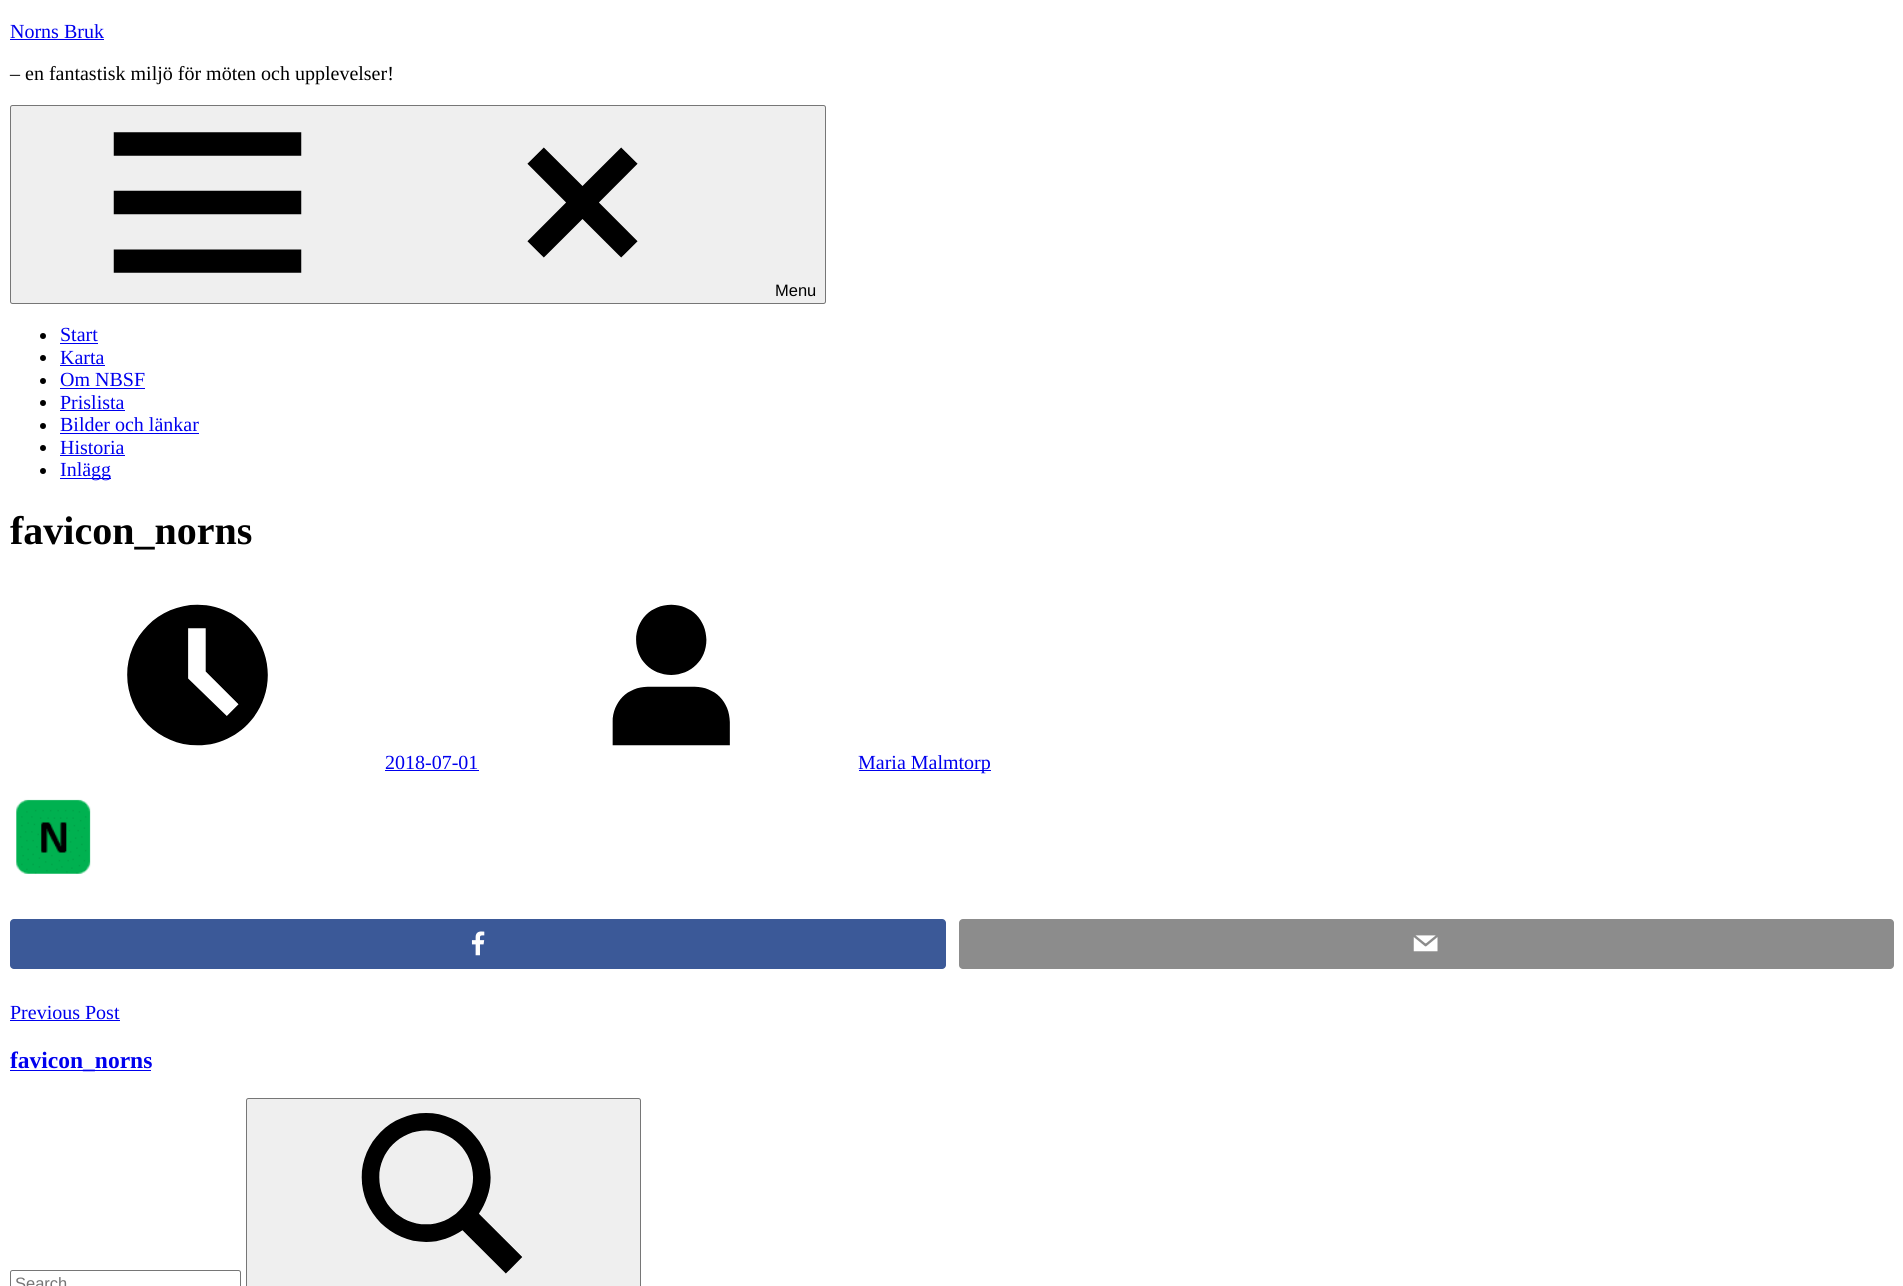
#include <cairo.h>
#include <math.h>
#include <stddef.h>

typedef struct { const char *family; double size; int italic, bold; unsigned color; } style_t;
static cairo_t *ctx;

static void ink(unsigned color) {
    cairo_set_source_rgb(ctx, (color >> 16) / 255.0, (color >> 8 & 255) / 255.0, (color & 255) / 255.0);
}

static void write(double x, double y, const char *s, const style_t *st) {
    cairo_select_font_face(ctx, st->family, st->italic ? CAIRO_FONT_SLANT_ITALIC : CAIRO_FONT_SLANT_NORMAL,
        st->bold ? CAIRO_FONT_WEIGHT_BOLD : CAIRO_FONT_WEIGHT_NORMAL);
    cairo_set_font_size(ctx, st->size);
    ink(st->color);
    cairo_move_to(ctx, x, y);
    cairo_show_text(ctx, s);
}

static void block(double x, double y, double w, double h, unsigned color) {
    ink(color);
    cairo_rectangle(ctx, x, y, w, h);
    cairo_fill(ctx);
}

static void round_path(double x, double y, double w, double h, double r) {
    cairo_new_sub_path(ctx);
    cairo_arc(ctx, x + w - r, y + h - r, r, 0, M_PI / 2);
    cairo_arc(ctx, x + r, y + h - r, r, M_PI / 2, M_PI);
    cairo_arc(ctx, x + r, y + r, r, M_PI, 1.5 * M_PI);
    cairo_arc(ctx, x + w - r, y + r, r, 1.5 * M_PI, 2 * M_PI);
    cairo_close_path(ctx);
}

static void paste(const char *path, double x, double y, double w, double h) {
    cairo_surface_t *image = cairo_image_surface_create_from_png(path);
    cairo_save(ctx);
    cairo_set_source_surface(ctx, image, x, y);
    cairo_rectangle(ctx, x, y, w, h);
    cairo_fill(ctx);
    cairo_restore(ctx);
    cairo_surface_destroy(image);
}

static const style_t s1 = {"Liberation Serif", 20, 0, 0, 0x0000ee};
static const style_t s2 = {"Liberation Serif", 20, 0, 0, 0x000000};
static const style_t s3 = {"Liberation Sans", 16.5, 0, 0, 0x000000};
static const style_t s4 = {"Liberation Serif", 40, 0, 1, 0x000000};
static const style_t s5 = {"Liberation Serif", 23.5, 0, 1, 0x0000ee};
static const style_t s6 = {"Liberation Sans", 16.5, 0, 0, 0x757575};

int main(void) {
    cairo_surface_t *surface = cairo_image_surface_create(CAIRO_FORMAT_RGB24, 1903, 1286);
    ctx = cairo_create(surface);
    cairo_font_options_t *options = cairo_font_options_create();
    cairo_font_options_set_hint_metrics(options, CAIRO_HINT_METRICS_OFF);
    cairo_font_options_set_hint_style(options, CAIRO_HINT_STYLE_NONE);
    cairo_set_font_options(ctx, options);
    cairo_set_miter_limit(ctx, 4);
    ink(0xffffff);
    cairo_paint(ctx);
    write(10, 38, "Norns Bruk", &s1);
    block(10, 39, 94, 1, 0x0000ee);
    write(10, 80, "– en fantastisk miljö för möten och upplevelser!", &s2);
    ink(0xefefef);
    round_path(10.5, 105.5, 815, 198, 2);
    cairo_fill_preserve(ctx);
    ink(0x767676);
    cairo_set_line_width(ctx, 1);
    cairo_stroke(ctx);
    paste("pic1.png", 113, 132, 189, 141);
    paste("pic2.png", 527, 147, 111, 111);
    write(775, 296, "Menu", &s3);
    cairo_new_path(ctx);
    cairo_arc(ctx, 43, 336, 3, 0, 2 * M_PI);
    cairo_fill(ctx);
    write(60, 341, "Start", &s1);
    block(60, 343, 38, 1, 0x0000ee);
    ink(0x000000);
    cairo_new_path(ctx);
    cairo_arc(ctx, 43, 358, 3, 0, 2 * M_PI);
    cairo_fill(ctx);
    write(60, 364, "Karta", &s1);
    block(60, 365, 45, 1, 0x0000ee);
    ink(0x000000);
    cairo_new_path(ctx);
    cairo_arc(ctx, 43, 381, 3, 0, 2 * M_PI);
    cairo_fill(ctx);
    write(60, 386, "Om NBSF", &s1);
    block(60, 388, 85, 1, 0x0000ee);
    ink(0x000000);
    cairo_new_path(ctx);
    cairo_arc(ctx, 43, 403, 3, 0, 2 * M_PI);
    cairo_fill(ctx);
    write(60, 409, "Prislista", &s1);
    block(60, 410, 65, 1, 0x0000ee);
    ink(0x000000);
    cairo_new_path(ctx);
    cairo_arc(ctx, 43, 426, 3, 0, 2 * M_PI);
    cairo_fill(ctx);
    write(60, 431, "Bilder och länkar", &s1);
    block(60, 433, 139, 1, 0x0000ee);
    ink(0x000000);
    cairo_new_path(ctx);
    cairo_arc(ctx, 43, 448, 3, 0, 2 * M_PI);
    cairo_fill(ctx);
    write(60, 454, "Historia", &s1);
    block(60, 455, 65, 1, 0x0000ee);
    ink(0x000000);
    cairo_new_path(ctx);
    cairo_arc(ctx, 43, 471, 3, 0, 2 * M_PI);
    cairo_fill(ctx);
    block(60, 478, 51, 1, 0x0000ee);
    write(60, 476, "Inlägg", &s1);
    write(10, 544, "favicon_norns", &s4);
    paste("pic3.png", 127, 604, 141, 142);
    paste("pic4.png", 612, 604, 118, 142);
    write(385, 769, "2018-07-01", &s1);
    block(385, 770, 94, 1, 0x0000ee);
    block(859, 770, 132, 1, 0x0000ee);
    write(858, 769, "Maria Malmtorp", &s1);
    paste("pic5.png", 16, 799, 75, 75);
    ink(0x3b5998);
    round_path(10, 919, 936, 50, 4);
    cairo_fill(ctx);
    paste("pic6.png", 471, 931, 14, 25);
    ink(0x8c8c8c);
    round_path(959, 919, 935, 50, 4);
    cairo_fill(ctx);
    paste("pic7.png", 1413, 935, 25, 17);
    write(10, 1019, "Previous Post", &s1);
    block(10, 1020, 110, 1, 0x0000ee);
    block(10, 1070, 141, 1, 0x0000ee);
    write(10, 1068, "favicon_norns", &s5);
    round_path(10.5, 1270.5, 230, 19, 2);
    ink(0x767676);
    cairo_stroke(ctx);
    write(15, 1289, "Search", &s6);
    ink(0xefefef);
    round_path(246.5, 1098.5, 394, 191, 2);
    cairo_fill_preserve(ctx);
    ink(0x767676);
    cairo_stroke(ctx);
    paste("pic8.png", 361, 1113, 162, 161);
    cairo_surface_write_to_png(surface, "screenshot.png");
    cairo_font_options_destroy(options);
    cairo_destroy(ctx);
    cairo_surface_destroy(surface);
    return 0;
}
